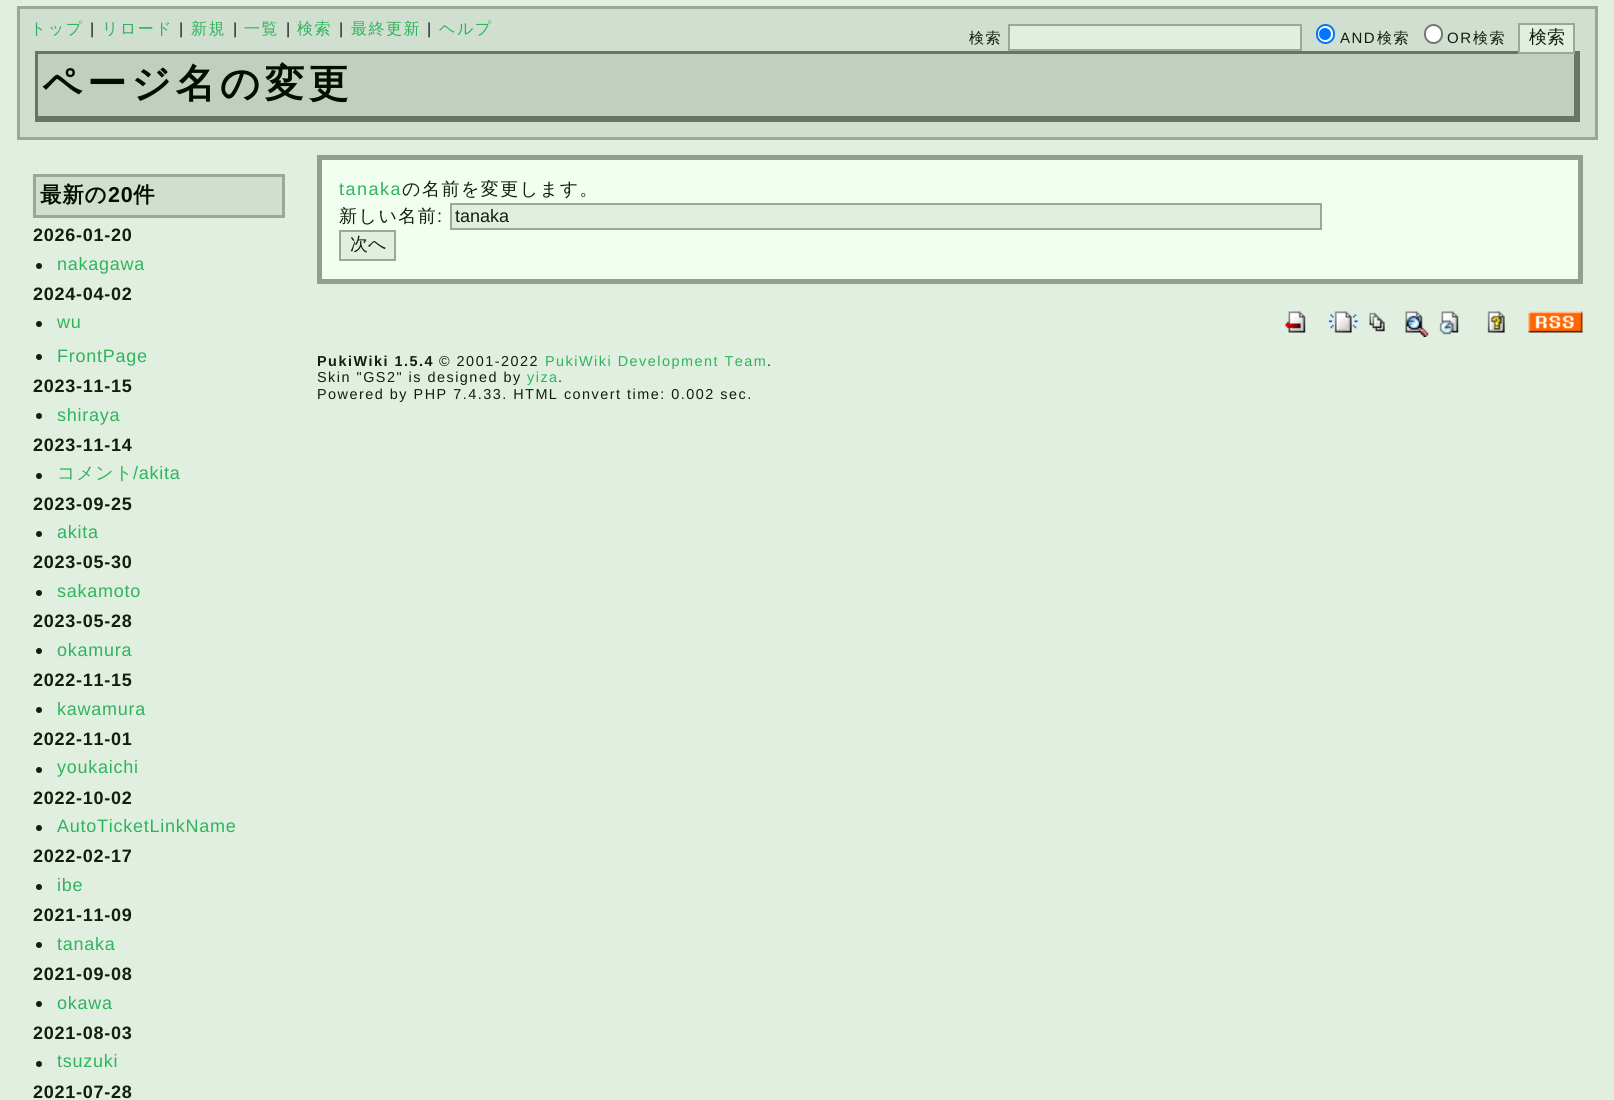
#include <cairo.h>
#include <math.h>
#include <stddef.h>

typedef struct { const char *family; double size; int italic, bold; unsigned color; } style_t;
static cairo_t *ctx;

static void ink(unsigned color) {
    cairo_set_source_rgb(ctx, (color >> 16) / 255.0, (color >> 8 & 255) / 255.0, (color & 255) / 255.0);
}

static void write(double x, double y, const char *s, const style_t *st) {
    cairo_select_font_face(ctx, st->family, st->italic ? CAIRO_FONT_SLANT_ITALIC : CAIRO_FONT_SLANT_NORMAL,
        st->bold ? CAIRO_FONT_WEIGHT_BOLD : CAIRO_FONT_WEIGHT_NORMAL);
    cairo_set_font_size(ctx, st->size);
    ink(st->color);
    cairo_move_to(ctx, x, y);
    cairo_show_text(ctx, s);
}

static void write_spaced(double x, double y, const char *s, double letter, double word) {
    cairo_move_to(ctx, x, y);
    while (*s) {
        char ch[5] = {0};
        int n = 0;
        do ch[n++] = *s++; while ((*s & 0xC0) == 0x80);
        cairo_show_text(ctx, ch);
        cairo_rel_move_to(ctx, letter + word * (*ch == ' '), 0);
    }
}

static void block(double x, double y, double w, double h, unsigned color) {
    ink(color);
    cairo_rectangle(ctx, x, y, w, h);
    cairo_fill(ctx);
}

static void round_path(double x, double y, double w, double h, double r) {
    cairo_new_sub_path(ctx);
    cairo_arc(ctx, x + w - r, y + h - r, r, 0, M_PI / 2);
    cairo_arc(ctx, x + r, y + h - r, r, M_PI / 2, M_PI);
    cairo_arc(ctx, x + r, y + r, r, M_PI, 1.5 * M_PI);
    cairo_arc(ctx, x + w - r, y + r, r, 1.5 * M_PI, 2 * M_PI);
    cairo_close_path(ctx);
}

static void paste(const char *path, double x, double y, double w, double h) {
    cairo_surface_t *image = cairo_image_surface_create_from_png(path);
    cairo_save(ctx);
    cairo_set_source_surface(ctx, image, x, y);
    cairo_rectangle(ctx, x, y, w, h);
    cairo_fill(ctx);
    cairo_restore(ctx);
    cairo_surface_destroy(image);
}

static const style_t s1 = {"WenQuanYi Zen Hei Medium", 18, 0, 0, 0x101f10};
static const style_t s2 = {"Liberation Sans", 18, 0, 0, 0x101f10};

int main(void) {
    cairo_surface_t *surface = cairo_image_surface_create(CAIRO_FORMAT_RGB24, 1614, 1100);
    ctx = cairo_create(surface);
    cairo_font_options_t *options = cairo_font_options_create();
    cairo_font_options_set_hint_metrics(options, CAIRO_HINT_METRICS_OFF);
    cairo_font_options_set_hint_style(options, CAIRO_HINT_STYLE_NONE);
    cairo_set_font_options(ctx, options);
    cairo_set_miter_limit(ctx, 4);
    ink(0xe0efe0);
    cairo_paint(ctx);
    ink(0xd0dfd0);
    cairo_rectangle(ctx, 18.5, 7.5, 1578, 131);
    cairo_fill_preserve(ctx);
    ink(0x99a899);
    cairo_set_line_width(ctx, 3);
    cairo_stroke(ctx);
    cairo_select_font_face(ctx, "WenQuanYi Zen Hei Medium", CAIRO_FONT_SLANT_NORMAL, CAIRO_FONT_WEIGHT_NORMAL);
    cairo_set_font_size(ctx, 16);
    ink(0x2fb35b);
    write_spaced(30, 34, "トップ", 1.5, 0);
    cairo_select_font_face(ctx, "Liberation Sans", CAIRO_FONT_SLANT_NORMAL, CAIRO_FONT_WEIGHT_NORMAL);
    ink(0x101f10);
    write_spaced(90, 34, "|", 1.5, 0);
    cairo_select_font_face(ctx, "WenQuanYi Zen Hei Medium", CAIRO_FONT_SLANT_NORMAL, CAIRO_FONT_WEIGHT_NORMAL);
    ink(0x2fb35b);
    write_spaced(102, 34, "リロード", 1.5, 0);
    cairo_select_font_face(ctx, "Liberation Sans", CAIRO_FONT_SLANT_NORMAL, CAIRO_FONT_WEIGHT_NORMAL);
    ink(0x101f10);
    write_spaced(179, 34, "|", 1.5, 0);
    cairo_select_font_face(ctx, "WenQuanYi Zen Hei Medium", CAIRO_FONT_SLANT_NORMAL, CAIRO_FONT_WEIGHT_NORMAL);
    ink(0x2fb35b);
    write_spaced(191, 34, "新規", 1.5, 0);
    cairo_select_font_face(ctx, "Liberation Sans", CAIRO_FONT_SLANT_NORMAL, CAIRO_FONT_WEIGHT_NORMAL);
    ink(0x101f10);
    write_spaced(233, 34, "|", 1.5, 0);
    cairo_select_font_face(ctx, "WenQuanYi Zen Hei Medium", CAIRO_FONT_SLANT_NORMAL, CAIRO_FONT_WEIGHT_NORMAL);
    ink(0x2fb35b);
    write_spaced(244, 34, "一覧", 1.5, 0);
    cairo_select_font_face(ctx, "Liberation Sans", CAIRO_FONT_SLANT_NORMAL, CAIRO_FONT_WEIGHT_NORMAL);
    ink(0x101f10);
    write_spaced(286, 34, "|", 1.5, 0);
    cairo_select_font_face(ctx, "WenQuanYi Zen Hei Medium", CAIRO_FONT_SLANT_NORMAL, CAIRO_FONT_WEIGHT_NORMAL);
    ink(0x2fb35b);
    write_spaced(297, 34, "検索", 1.5, 0);
    cairo_select_font_face(ctx, "Liberation Sans", CAIRO_FONT_SLANT_NORMAL, CAIRO_FONT_WEIGHT_NORMAL);
    ink(0x101f10);
    write_spaced(339, 34, "|", 1.5, 0);
    cairo_select_font_face(ctx, "WenQuanYi Zen Hei Medium", CAIRO_FONT_SLANT_NORMAL, CAIRO_FONT_WEIGHT_NORMAL);
    ink(0x2fb35b);
    write_spaced(351, 34, "最終更新", 1.5, 0);
    cairo_select_font_face(ctx, "Liberation Sans", CAIRO_FONT_SLANT_NORMAL, CAIRO_FONT_WEIGHT_NORMAL);
    ink(0x101f10);
    write_spaced(427, 34, "|", 1.5, 0);
    cairo_select_font_face(ctx, "WenQuanYi Zen Hei Medium", CAIRO_FONT_SLANT_NORMAL, CAIRO_FONT_WEIGHT_NORMAL);
    ink(0x2fb35b);
    write_spaced(439, 34, "ヘルプ", 1.5, 0);
    cairo_set_font_size(ctx, 15);
    ink(0x101f10);
    write_spaced(969, 43, "検索", 1.5, 0);
    ink(0xe0efe0);
    cairo_rectangle(ctx, 1009, 25, 292, 25);
    cairo_fill_preserve(ctx);
    ink(0x99a899);
    cairo_set_line_width(ctx, 2);
    cairo_stroke(ctx);
    ink(0xffffff);
    round_path(1317, 25, 17, 18, 8.5);
    cairo_fill_preserve(ctx);
    ink(0x0075ff);
    cairo_stroke(ctx);
    cairo_arc(ctx, 1325, 34, 6, 0, 2 * M_PI);
    cairo_fill(ctx);
    cairo_select_font_face(ctx, "Liberation Sans", CAIRO_FONT_SLANT_NORMAL, CAIRO_FONT_WEIGHT_NORMAL);
    ink(0x101f10);
    write_spaced(1340, 43, "AND", 1.5, 0);
    cairo_select_font_face(ctx, "WenQuanYi Zen Hei Medium", CAIRO_FONT_SLANT_NORMAL, CAIRO_FONT_WEIGHT_NORMAL);
    write_spaced(1377, 43, "検索", 1.5, 0);
    ink(0xffffff);
    round_path(1425, 25, 17, 18, 8.5);
    cairo_fill_preserve(ctx);
    ink(0x767676);
    cairo_stroke(ctx);
    cairo_select_font_face(ctx, "Liberation Sans", CAIRO_FONT_SLANT_NORMAL, CAIRO_FONT_WEIGHT_NORMAL);
    ink(0x101f10);
    write_spaced(1447, 43, "OR", 1.5, 0);
    cairo_select_font_face(ctx, "WenQuanYi Zen Hei Medium", CAIRO_FONT_SLANT_NORMAL, CAIRO_FONT_WEIGHT_NORMAL);
    write_spaced(1473, 43, "検索", 1.5, 0);
    block(1574, 51, 6, 71, 0x667566);
    ink(0xe0efe0);
    cairo_rectangle(ctx, 1519, 24, 55, 29);
    cairo_fill_preserve(ctx);
    ink(0x99a899);
    cairo_stroke(ctx);
    write(1529, 43, "検索", &s1);
    block(38, 54, 1536, 62, 0xc0cfc0);
    block(35, 51, 1483, 3, 0x667566);
    block(35, 116, 1545, 6, 0x667566);
    block(35, 51, 3, 71, 0x667566);
    cairo_select_font_face(ctx, "WenQuanYi Zen Hei", CAIRO_FONT_SLANT_NORMAL, CAIRO_FONT_WEIGHT_BOLD);
    cairo_set_font_size(ctx, 39.5);
    ink(0x000f00);
    write_spaced(42, 97, "ページ名の変更", 4.5, 0);
    ink(0xd0dfd0);
    cairo_rectangle(ctx, 34.5, 175.5, 249, 41);
    cairo_fill_preserve(ctx);
    ink(0x99a899);
    cairo_set_line_width(ctx, 3);
    cairo_stroke(ctx);
    cairo_set_font_size(ctx, 21.5);
    ink(0x000f00);
    write_spaced(40, 202, "最新の", 0.75, 0);
    cairo_select_font_face(ctx, "Liberation Sans", CAIRO_FONT_SLANT_NORMAL, CAIRO_FONT_WEIGHT_BOLD);
    write_spaced(108, 202, "20", 0.75, 0);
    cairo_select_font_face(ctx, "WenQuanYi Zen Hei", CAIRO_FONT_SLANT_NORMAL, CAIRO_FONT_WEIGHT_BOLD);
    write_spaced(133, 202, "件", 0.75, 0);
    cairo_select_font_face(ctx, "Liberation Sans", CAIRO_FONT_SLANT_NORMAL, CAIRO_FONT_WEIGHT_BOLD);
    cairo_set_font_size(ctx, 18);
    ink(0x101f10);
    write_spaced(33, 241, "2026-01-20", 0.75, 0);
    cairo_new_path(ctx);
    cairo_arc(ctx, 39, 266, 3, 0, 2 * M_PI);
    cairo_fill(ctx);
    cairo_select_font_face(ctx, "Liberation Sans", CAIRO_FONT_SLANT_NORMAL, CAIRO_FONT_WEIGHT_NORMAL);
    ink(0x2fb35b);
    write_spaced(57, 270, "nakagawa", 0.75, 0);
    cairo_select_font_face(ctx, "Liberation Sans", CAIRO_FONT_SLANT_NORMAL, CAIRO_FONT_WEIGHT_BOLD);
    ink(0x101f10);
    write_spaced(33, 300, "2024-04-02", 0.75, 0);
    cairo_new_path(ctx);
    cairo_arc(ctx, 39, 324, 3, 0, 2 * M_PI);
    cairo_fill(ctx);
    cairo_select_font_face(ctx, "Liberation Sans", CAIRO_FONT_SLANT_NORMAL, CAIRO_FONT_WEIGHT_NORMAL);
    ink(0x2fb35b);
    write_spaced(57, 328, "wu", 0.75, 0);
    ink(0x101f10);
    cairo_new_path(ctx);
    cairo_arc(ctx, 39, 357, 3, 0, 2 * M_PI);
    cairo_fill(ctx);
    ink(0x2fb35b);
    write_spaced(57, 362, "FrontPage", 0.75, 0);
    cairo_select_font_face(ctx, "Liberation Sans", CAIRO_FONT_SLANT_NORMAL, CAIRO_FONT_WEIGHT_BOLD);
    ink(0x101f10);
    write_spaced(33, 392, "2023-11-15", 0.75, 0);
    cairo_new_path(ctx);
    cairo_arc(ctx, 39, 416, 3, 0, 2 * M_PI);
    cairo_fill(ctx);
    cairo_select_font_face(ctx, "Liberation Sans", CAIRO_FONT_SLANT_NORMAL, CAIRO_FONT_WEIGHT_NORMAL);
    ink(0x2fb35b);
    write_spaced(57, 421, "shiraya", 0.75, 0);
    cairo_select_font_face(ctx, "Liberation Sans", CAIRO_FONT_SLANT_NORMAL, CAIRO_FONT_WEIGHT_BOLD);
    ink(0x101f10);
    write_spaced(33, 451, "2023-11-14", 0.75, 0);
    cairo_new_path(ctx);
    cairo_arc(ctx, 39, 476, 3, 0, 2 * M_PI);
    cairo_fill(ctx);
    cairo_select_font_face(ctx, "WenQuanYi Zen Hei Medium", CAIRO_FONT_SLANT_NORMAL, CAIRO_FONT_WEIGHT_NORMAL);
    ink(0x2fb35b);
    write_spaced(57, 479, "コメント", 0.75, 0);
    cairo_select_font_face(ctx, "Liberation Sans", CAIRO_FONT_SLANT_NORMAL, CAIRO_FONT_WEIGHT_NORMAL);
    write_spaced(133, 479, "/akita", 0.75, 0);
    cairo_select_font_face(ctx, "Liberation Sans", CAIRO_FONT_SLANT_NORMAL, CAIRO_FONT_WEIGHT_BOLD);
    ink(0x101f10);
    write_spaced(33, 510, "2023-09-25", 0.75, 0);
    cairo_new_path(ctx);
    cairo_arc(ctx, 39, 534, 3, 0, 2 * M_PI);
    cairo_fill(ctx);
    cairo_select_font_face(ctx, "Liberation Sans", CAIRO_FONT_SLANT_NORMAL, CAIRO_FONT_WEIGHT_NORMAL);
    ink(0x2fb35b);
    write_spaced(57, 538, "akita", 0.75, 0);
    cairo_select_font_face(ctx, "Liberation Sans", CAIRO_FONT_SLANT_NORMAL, CAIRO_FONT_WEIGHT_BOLD);
    ink(0x101f10);
    write_spaced(33, 568, "2023-05-30", 0.75, 0);
    cairo_new_path(ctx);
    cairo_arc(ctx, 39, 593, 3, 0, 2 * M_PI);
    cairo_fill(ctx);
    cairo_select_font_face(ctx, "Liberation Sans", CAIRO_FONT_SLANT_NORMAL, CAIRO_FONT_WEIGHT_NORMAL);
    ink(0x2fb35b);
    write_spaced(57, 597, "sakamoto", 0.75, 0);
    cairo_select_font_face(ctx, "Liberation Sans", CAIRO_FONT_SLANT_NORMAL, CAIRO_FONT_WEIGHT_BOLD);
    ink(0x101f10);
    write_spaced(33, 627, "2023-05-28", 0.75, 0);
    cairo_new_path(ctx);
    cairo_arc(ctx, 39, 651, 3, 0, 2 * M_PI);
    cairo_fill(ctx);
    cairo_select_font_face(ctx, "Liberation Sans", CAIRO_FONT_SLANT_NORMAL, CAIRO_FONT_WEIGHT_NORMAL);
    ink(0x2fb35b);
    write_spaced(57, 656, "okamura", 0.75, 0);
    cairo_select_font_face(ctx, "Liberation Sans", CAIRO_FONT_SLANT_NORMAL, CAIRO_FONT_WEIGHT_BOLD);
    ink(0x101f10);
    write_spaced(33, 686, "2022-11-15", 0.75, 0);
    cairo_new_path(ctx);
    cairo_arc(ctx, 39, 710, 3, 0, 2 * M_PI);
    cairo_fill(ctx);
    cairo_select_font_face(ctx, "Liberation Sans", CAIRO_FONT_SLANT_NORMAL, CAIRO_FONT_WEIGHT_NORMAL);
    ink(0x2fb35b);
    write_spaced(57, 715, "kawamura", 0.75, 0);
    cairo_select_font_face(ctx, "Liberation Sans", CAIRO_FONT_SLANT_NORMAL, CAIRO_FONT_WEIGHT_BOLD);
    ink(0x101f10);
    write_spaced(33, 745, "2022-11-01", 0.75, 0);
    cairo_new_path(ctx);
    cairo_arc(ctx, 39, 770, 3, 0, 2 * M_PI);
    cairo_fill(ctx);
    cairo_select_font_face(ctx, "Liberation Sans", CAIRO_FONT_SLANT_NORMAL, CAIRO_FONT_WEIGHT_NORMAL);
    ink(0x2fb35b);
    write_spaced(57, 773, "youkaichi", 0.75, 0);
    cairo_select_font_face(ctx, "Liberation Sans", CAIRO_FONT_SLANT_NORMAL, CAIRO_FONT_WEIGHT_BOLD);
    ink(0x101f10);
    write_spaced(33, 804, "2022-10-02", 0.75, 0);
    cairo_new_path(ctx);
    cairo_arc(ctx, 39, 828, 3, 0, 2 * M_PI);
    cairo_fill(ctx);
    cairo_select_font_face(ctx, "Liberation Sans", CAIRO_FONT_SLANT_NORMAL, CAIRO_FONT_WEIGHT_NORMAL);
    ink(0x2fb35b);
    write_spaced(57, 832, "AutoTicketLinkName", 0.75, 0);
    cairo_select_font_face(ctx, "Liberation Sans", CAIRO_FONT_SLANT_NORMAL, CAIRO_FONT_WEIGHT_BOLD);
    ink(0x101f10);
    write_spaced(33, 862, "2022-02-17", 0.75, 0);
    cairo_new_path(ctx);
    cairo_arc(ctx, 39, 887, 3, 0, 2 * M_PI);
    cairo_fill(ctx);
    cairo_select_font_face(ctx, "Liberation Sans", CAIRO_FONT_SLANT_NORMAL, CAIRO_FONT_WEIGHT_NORMAL);
    ink(0x2fb35b);
    write_spaced(57, 891, "ibe", 0.75, 0);
    cairo_select_font_face(ctx, "Liberation Sans", CAIRO_FONT_SLANT_NORMAL, CAIRO_FONT_WEIGHT_BOLD);
    ink(0x101f10);
    write_spaced(33, 921, "2021-11-09", 0.75, 0);
    cairo_new_path(ctx);
    cairo_arc(ctx, 39, 945, 3, 0, 2 * M_PI);
    cairo_fill(ctx);
    cairo_select_font_face(ctx, "Liberation Sans", CAIRO_FONT_SLANT_NORMAL, CAIRO_FONT_WEIGHT_NORMAL);
    ink(0x2fb35b);
    write_spaced(57, 950, "tanaka", 0.75, 0);
    cairo_select_font_face(ctx, "Liberation Sans", CAIRO_FONT_SLANT_NORMAL, CAIRO_FONT_WEIGHT_BOLD);
    ink(0x101f10);
    write_spaced(33, 980, "2021-09-08", 0.75, 0);
    cairo_new_path(ctx);
    cairo_arc(ctx, 39, 1004, 3, 0, 2 * M_PI);
    cairo_fill(ctx);
    cairo_select_font_face(ctx, "Liberation Sans", CAIRO_FONT_SLANT_NORMAL, CAIRO_FONT_WEIGHT_NORMAL);
    ink(0x2fb35b);
    write_spaced(57, 1009, "okawa", 0.75, 0);
    cairo_select_font_face(ctx, "Liberation Sans", CAIRO_FONT_SLANT_NORMAL, CAIRO_FONT_WEIGHT_BOLD);
    ink(0x101f10);
    write_spaced(33, 1039, "2021-08-03", 0.75, 0);
    cairo_new_path(ctx);
    cairo_arc(ctx, 39, 1064, 3, 0, 2 * M_PI);
    cairo_fill(ctx);
    cairo_select_font_face(ctx, "Liberation Sans", CAIRO_FONT_SLANT_NORMAL, CAIRO_FONT_WEIGHT_NORMAL);
    ink(0x2fb35b);
    write_spaced(57, 1067, "tsuzuki", 0.75, 0);
    cairo_select_font_face(ctx, "Liberation Sans", CAIRO_FONT_SLANT_NORMAL, CAIRO_FONT_WEIGHT_BOLD);
    ink(0x101f10);
    write_spaced(33, 1098, "2021-07-28", 0.75, 0);
    ink(0xf0fff0);
    cairo_rectangle(ctx, 319.5, 157.5, 1261, 124);
    cairo_fill_preserve(ctx);
    ink(0x909f90);
    cairo_set_line_width(ctx, 5);
    cairo_stroke(ctx);
    cairo_select_font_face(ctx, "Liberation Sans", CAIRO_FONT_SLANT_NORMAL, CAIRO_FONT_WEIGHT_NORMAL);
    ink(0x2fb35b);
    write_spaced(339, 195, "tanaka", 1.5, 0);
    cairo_select_font_face(ctx, "WenQuanYi Zen Hei Medium", CAIRO_FONT_SLANT_NORMAL, CAIRO_FONT_WEIGHT_NORMAL);
    ink(0x101f10);
    write_spaced(402, 195, "の名前を変更します。", 1.5, 0);
    write_spaced(339, 222, "新しい名前", 1.5, 0);
    cairo_select_font_face(ctx, "Liberation Sans", CAIRO_FONT_SLANT_NORMAL, CAIRO_FONT_WEIGHT_NORMAL);
    write_spaced(437, 222, ":", 1.5, 0);
    ink(0xe0efe0);
    cairo_rectangle(ctx, 451, 204, 870, 25);
    cairo_fill_preserve(ctx);
    ink(0x99a899);
    cairo_set_line_width(ctx, 2);
    cairo_stroke(ctx);
    write(455, 222, "tanaka", &s2);
    ink(0xe0efe0);
    cairo_rectangle(ctx, 340, 231, 55, 29);
    cairo_fill_preserve(ctx);
    ink(0x99a899);
    cairo_stroke(ctx);
    write(350, 250, "次へ", &s1);
    paste("pic1.png", 1285, 311, 21, 22);
    paste("pic2.png", 1329, 311, 29, 22);
    paste("pic3.png", 1369, 312, 16, 20);
    paste("pic4.png", 1405, 311, 24, 26);
    paste("pic5.png", 1439, 311, 20, 24);
    paste("pic6.png", 1487, 311, 18, 22);
    paste("pic7.png", 1528, 311, 55, 22);
    cairo_select_font_face(ctx, "Liberation Sans", CAIRO_FONT_SLANT_NORMAL, CAIRO_FONT_WEIGHT_BOLD);
    cairo_set_font_size(ctx, 14.4);
    write_spaced(317, 366, "PukiWiki 1.5.4", 1.5, 0);
    cairo_select_font_face(ctx, "Liberation Sans", CAIRO_FONT_SLANT_NORMAL, CAIRO_FONT_WEIGHT_NORMAL);
    write_spaced(439, 366, "© 2001-2022", 1.5, 0);
    ink(0x2fb35b);
    write_spaced(545, 366, "PukiWiki Development Team", 1.5, 0);
    ink(0x101f10);
    write_spaced(767, 366, ".", 1.5, 0);
    write_spaced(317, 382, "Skin \"GS2\" is designed by", 1.5, 0);
    ink(0x2fb35b);
    write_spaced(527, 382, "yiza", 1.5, 0);
    ink(0x101f10);
    write_spaced(558, 382, ".", 1.5, 0);
    write_spaced(317, 399, "Powered by PHP 7.4.33. HTML convert time: 0.002 sec.", 1.5, 0);
    cairo_surface_write_to_png(surface, "screenshot.png");
    cairo_font_options_destroy(options);
    cairo_destroy(ctx);
    cairo_surface_destroy(surface);
    return 0;
}
